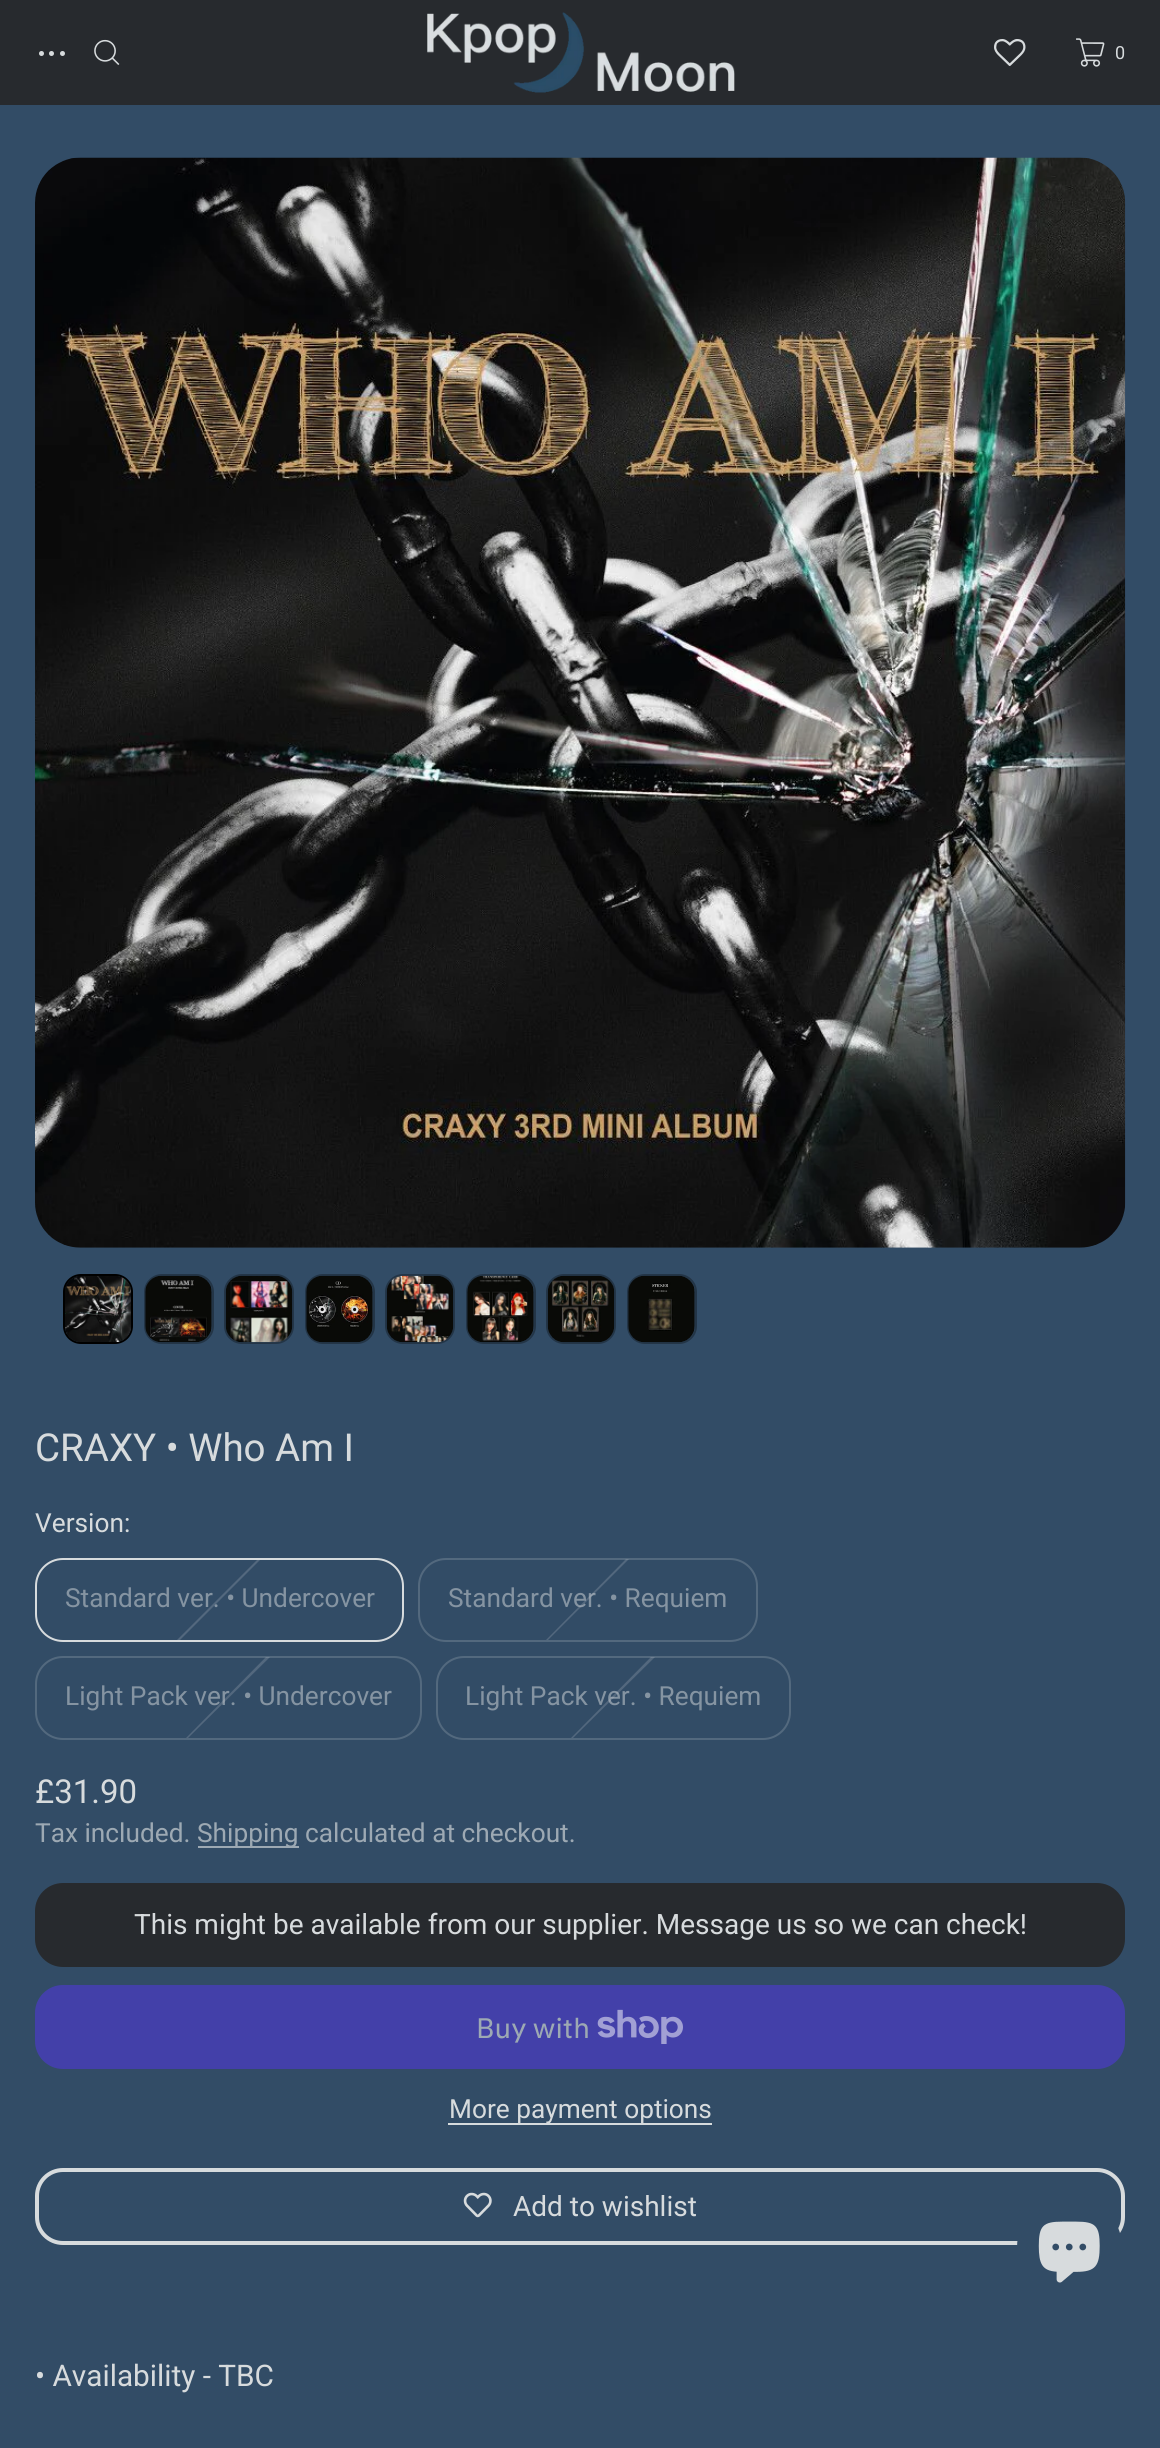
#include <cairo.h>
#include <math.h>
#include <stddef.h>

typedef struct { const char *family; double size; int italic, bold; unsigned color; } style_t;
static cairo_t *ctx;

static void ink(unsigned color) {
    cairo_set_source_rgb(ctx, (color >> 16) / 255.0, (color >> 8 & 255) / 255.0, (color & 255) / 255.0);
}

static void write(double x, double y, const char *s, const style_t *st) {
    cairo_select_font_face(ctx, st->family, st->italic ? CAIRO_FONT_SLANT_ITALIC : CAIRO_FONT_SLANT_NORMAL,
        st->bold ? CAIRO_FONT_WEIGHT_BOLD : CAIRO_FONT_WEIGHT_NORMAL);
    cairo_set_font_size(ctx, st->size);
    ink(st->color);
    cairo_move_to(ctx, x, y);
    cairo_show_text(ctx, s);
}

static void block(double x, double y, double w, double h, unsigned color) {
    ink(color);
    cairo_rectangle(ctx, x, y, w, h);
    cairo_fill(ctx);
}

static void round_path(double x, double y, double w, double h, double r) {
    cairo_new_sub_path(ctx);
    cairo_arc(ctx, x + w - r, y + h - r, r, 0, M_PI / 2);
    cairo_arc(ctx, x + r, y + h - r, r, M_PI / 2, M_PI);
    cairo_arc(ctx, x + r, y + r, r, M_PI, 1.5 * M_PI);
    cairo_arc(ctx, x + w - r, y + r, r, 1.5 * M_PI, 2 * M_PI);
    cairo_close_path(ctx);
}

static void paste(const char *path, double x, double y, double w, double h) {
    cairo_surface_t *image = cairo_image_surface_create_from_png(path);
    cairo_save(ctx);
    cairo_set_source_surface(ctx, image, x, y);
    cairo_rectangle(ctx, x, y, w, h);
    cairo_fill(ctx);
    cairo_restore(ctx);
    cairo_surface_destroy(image);
}

static const style_t s1 = {"Roboto", 18, 0, 0, 0xd7dbdd};
static const style_t s2 = {"Roboto", 38.5, 0, 0, 0xd7dbdd};
static const style_t s3 = {"Roboto", 26.25, 0, 0, 0xd7dbdd};
static const style_t s4 = {"Roboto", 26.25, 0, 0, 0x8594a2};
static const style_t s5 = {"Roboto", 33, 0, 0, 0xd7dbdd};
static const style_t s6 = {"Roboto", 26.25, 0, 0, 0x9da9b3};
static const style_t s7 = {"Roboto", 28, 0, 0, 0xd7dbdd};
static const style_t s8 = {"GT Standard", 28, 0, 0, 0x9da9b3};
static const style_t s9 = {"Roboto", 29.75, 0, 0, 0xd7dbdd};

int main(void) {
    cairo_surface_t *surface = cairo_image_surface_create(CAIRO_FORMAT_RGB24, 1160, 2448);
    ctx = cairo_create(surface);
    cairo_font_options_t *options = cairo_font_options_create();
    cairo_font_options_set_hint_metrics(options, CAIRO_HINT_METRICS_OFF);
    cairo_font_options_set_hint_style(options, CAIRO_HINT_STYLE_NONE);
    cairo_set_font_options(ctx, options);
    cairo_set_miter_limit(ctx, 4);
    ink(0x324c66);
    cairo_paint(ctx);
    block(0, 0, 1160, 105, 0x272a2e);
    ink(0xd7dbdd);
    cairo_arc(ctx, 41.5, 53.5, 2.5, 0, 2 * M_PI);
    cairo_fill(ctx);
    cairo_arc(ctx, 51.5, 53.5, 2.5, 0, 2 * M_PI);
    cairo_fill(ctx);
    cairo_arc(ctx, 62.5, 53.5, 2.5, 0, 2 * M_PI);
    cairo_fill(ctx);
    paste("pic1.png", 427, 12, 308, 81);
    paste("pic2.png", 94, 39, 26, 26);
    paste("pic3.png", 994, 39, 32, 27);
    paste("pic4.png", 1076, 38, 29, 29);
    write(1115, 59, "0", &s1);
    paste("pic5.png", 35, 157, 1091, 1091);
    round_path(64, 1275, 68, 68, 17);
    ink(0x000000);
    cairo_stroke(ctx);
    paste("pic6.png", 65, 1276, 66, 66);
    round_path(145, 1275, 68, 68, 17);
    ink(0x233547);
    cairo_stroke(ctx);
    paste("pic7.png", 145, 1275, 67, 68);
    round_path(225, 1275, 68, 68, 17);
    cairo_stroke(ctx);
    paste("pic8.png", 225, 1275, 68, 68);
    round_path(306, 1275, 68, 68, 17);
    cairo_stroke(ctx);
    paste("pic9.png", 306, 1275, 67, 68);
    round_path(386, 1275, 68, 68, 17);
    cairo_stroke(ctx);
    paste("pic10.png", 386, 1275, 68, 68);
    round_path(467, 1275, 68, 68, 17);
    cairo_stroke(ctx);
    paste("pic11.png", 467, 1275, 67, 68);
    round_path(547, 1275, 68, 68, 17);
    cairo_stroke(ctx);
    paste("pic12.png", 547, 1275, 68, 68);
    round_path(628, 1275, 68, 68, 17);
    cairo_stroke(ctx);
    paste("pic13.png", 628, 1275, 67, 68);
    write(35, 1461, "CRAXY • Who Am I", &s2);
    write(35, 1532, "Version:", &s3);
    round_path(36, 1559, 367, 82, 27);
    cairo_stroke(ctx);
    write(65, 1607, "Standard ver. • Undercover", &s4);
    cairo_set_source_rgba(ctx, 0.843, 0.859, 0.867, 0.2);
    cairo_new_path(ctx);
    cairo_move_to(ctx, 261, 1559);
    cairo_line_to(ctx, 180, 1640);
    cairo_line_to(ctx, 177, 1640);
    cairo_line_to(ctx, 258, 1559);
    cairo_close_path(ctx);
    cairo_fill(ctx);
    round_path(419, 1559, 338, 82, 27);
    ink(0x53697e);
    cairo_stroke(ctx);
    write(448, 1607, "Standard ver. • Requiem", &s4);
    cairo_set_source_rgba(ctx, 0.843, 0.859, 0.867, 0.2);
    cairo_new_path(ctx);
    cairo_move_to(ctx, 629, 1559);
    cairo_line_to(ctx, 548, 1640);
    cairo_line_to(ctx, 546, 1640);
    cairo_line_to(ctx, 626, 1559);
    cairo_close_path(ctx);
    cairo_fill(ctx);
    round_path(36, 1657, 385, 82, 27);
    ink(0x53697e);
    cairo_stroke(ctx);
    write(65, 1705, "Light Pack ver. • Undercover", &s4);
    cairo_set_source_rgba(ctx, 0.843, 0.859, 0.867, 0.2);
    cairo_new_path(ctx);
    cairo_move_to(ctx, 270, 1657);
    cairo_line_to(ctx, 188, 1738);
    cairo_line_to(ctx, 186, 1738);
    cairo_line_to(ctx, 266, 1657);
    cairo_close_path(ctx);
    cairo_fill(ctx);
    round_path(437, 1657, 353, 82, 27);
    ink(0x53697e);
    cairo_stroke(ctx);
    write(465, 1705, "Light Pack ver. • Requiem", &s4);
    cairo_set_source_rgba(ctx, 0.843, 0.859, 0.867, 0.2);
    cairo_new_path(ctx);
    cairo_move_to(ctx, 655, 1657);
    cairo_line_to(ctx, 573, 1738);
    cairo_line_to(ctx, 571, 1738);
    cairo_line_to(ctx, 651, 1657);
    cairo_close_path(ctx);
    cairo_fill(ctx);
    write(35, 1803, "£31.90", &s5);
    write(35, 1842, "Tax included.", &s6);
    block(198, 1846, 101, 2, 0x9da9b3);
    write(197, 1842, "Shipping calculated at checkout.", &s6);
    ink(0x272a2e);
    round_path(35, 1883, 1090, 84, 28);
    cairo_fill(ctx);
    write(134, 1934, "This might be available from our supplier. Message us so we can check!", &s7);
    ink(0x4340a9);
    round_path(35, 1985, 1090, 84, 28);
    cairo_fill(ctx);
    write(476, 2038, "Buy with", &s8);
    paste("pic14.png", 597, 2009, 86, 35);
    block(448, 2123, 264, 2, 0xd7dbdd);
    write(449, 2118, "More payment options", &s3);
    round_path(37, 2170, 1086, 73, 26);
    cairo_set_line_width(ctx, 4);
    cairo_stroke(ctx);
    paste("pic15.png", 463, 2192, 29, 26);
    write(513, 2216, "Add to wishlist", &s7);
    write(35, 2386, "• Availability - TBC", &s9);
    ink(0x324c66);
    cairo_new_path(ctx);
    cairo_arc(ctx, 1069.5, 2247.5, 52.5, 0, 2 * M_PI);
    cairo_fill(ctx);
    paste("pic16.png", 1038, 2221, 62, 62);
    cairo_surface_write_to_png(surface, "screenshot.png");
    cairo_font_options_destroy(options);
    cairo_destroy(ctx);
    cairo_surface_destroy(surface);
    return 0;
}
